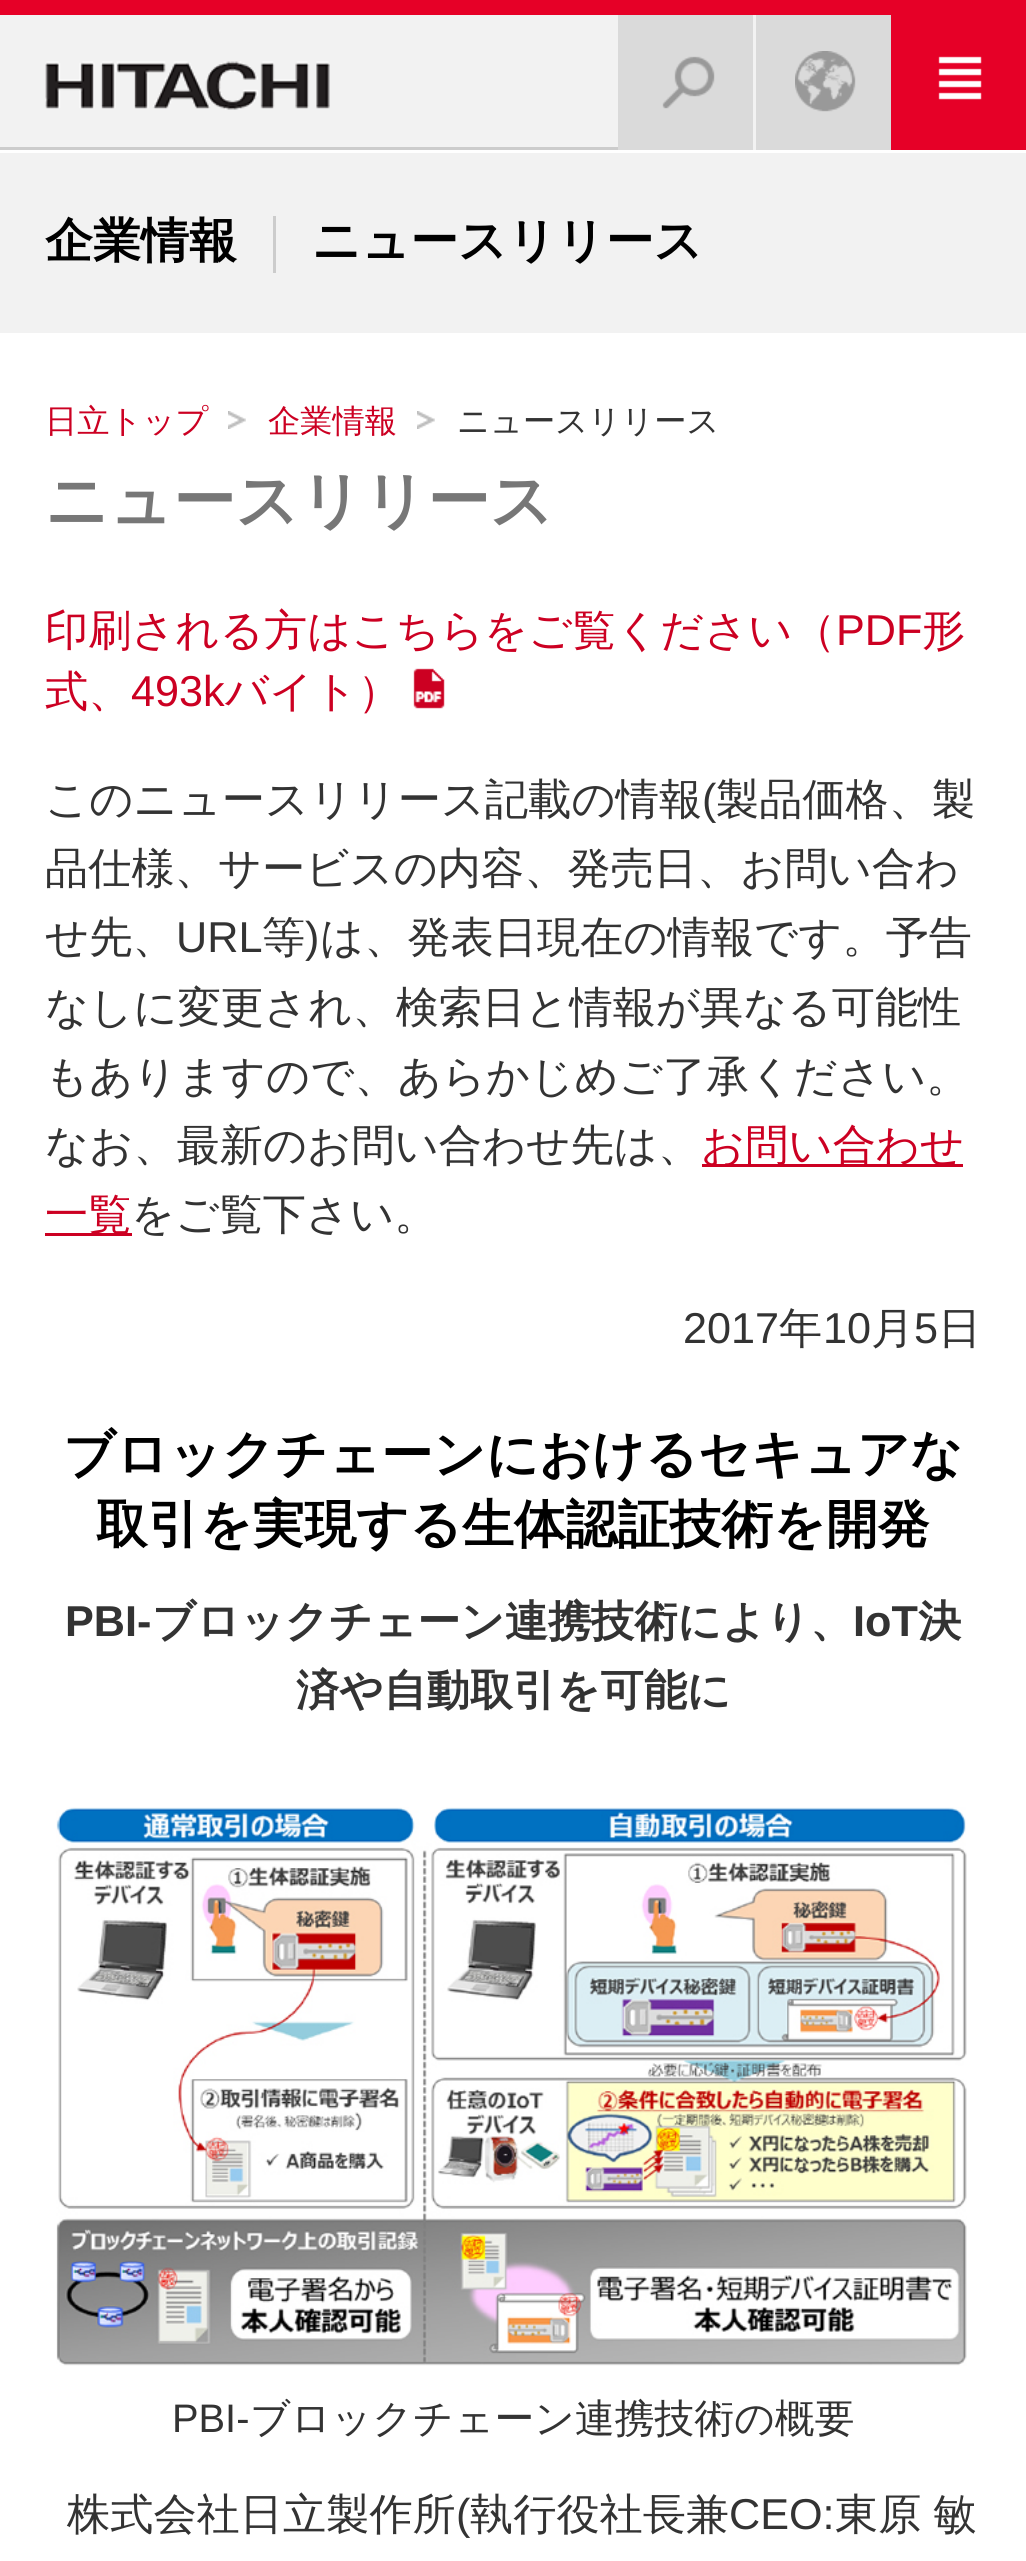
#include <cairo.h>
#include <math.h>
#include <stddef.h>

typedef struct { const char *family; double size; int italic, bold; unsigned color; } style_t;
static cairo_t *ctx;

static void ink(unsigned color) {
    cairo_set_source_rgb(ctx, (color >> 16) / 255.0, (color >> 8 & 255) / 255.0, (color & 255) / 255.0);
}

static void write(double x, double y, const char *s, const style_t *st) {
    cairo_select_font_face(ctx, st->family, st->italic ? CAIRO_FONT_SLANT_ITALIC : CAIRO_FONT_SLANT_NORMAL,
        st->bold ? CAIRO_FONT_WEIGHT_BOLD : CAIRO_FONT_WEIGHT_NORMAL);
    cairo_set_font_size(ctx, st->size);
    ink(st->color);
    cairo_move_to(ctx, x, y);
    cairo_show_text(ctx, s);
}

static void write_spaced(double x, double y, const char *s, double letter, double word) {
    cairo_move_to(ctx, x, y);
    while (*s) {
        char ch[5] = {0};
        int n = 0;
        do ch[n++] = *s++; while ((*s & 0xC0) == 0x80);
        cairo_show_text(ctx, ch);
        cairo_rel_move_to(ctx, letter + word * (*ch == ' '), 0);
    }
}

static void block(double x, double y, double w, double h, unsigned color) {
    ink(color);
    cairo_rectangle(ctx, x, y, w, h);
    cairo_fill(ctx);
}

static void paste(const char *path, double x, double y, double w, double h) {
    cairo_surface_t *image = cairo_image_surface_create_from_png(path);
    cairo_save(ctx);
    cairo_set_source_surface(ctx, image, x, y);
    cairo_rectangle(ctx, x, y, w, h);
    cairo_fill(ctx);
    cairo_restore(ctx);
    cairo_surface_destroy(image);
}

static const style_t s1 = {"WenQuanYi Zen Hei", 48, 0, 1, 0x000000};
static const style_t s2 = {"WenQuanYi Zen Hei Medium", 32.25, 0, 0, 0xcc0022};
static const style_t s3 = {"WenQuanYi Zen Hei Medium", 32.25, 0, 0, 0x333333};
static const style_t s4 = {"WenQuanYi Zen Hei", 62.5, 0, 1, 0x777777};
static const style_t s5 = {"WenQuanYi Zen Hei Medium", 43.2, 0, 0, 0xcc0022};
static const style_t s6 = {"Liberation Sans", 43.2, 0, 0, 0xcc0022};
static const style_t s7 = {"WenQuanYi Zen Hei Medium", 43.2, 0, 0, 0x333333};
static const style_t s8 = {"Liberation Sans", 43.2, 0, 0, 0x333333};
static const style_t s9 = {"WenQuanYi Zen Hei", 51.8, 0, 1, 0x000000};
static const style_t s10 = {"Liberation Sans", 43.2, 0, 1, 0x333333};
static const style_t s11 = {"WenQuanYi Zen Hei", 43.2, 0, 1, 0x333333};
static const style_t s12 = {"Liberation Sans", 39.8, 0, 0, 0x333333};
static const style_t s13 = {"WenQuanYi Zen Hei Medium", 39.8, 0, 0, 0x333333};

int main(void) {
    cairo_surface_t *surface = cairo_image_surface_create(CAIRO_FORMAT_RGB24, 1026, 2561);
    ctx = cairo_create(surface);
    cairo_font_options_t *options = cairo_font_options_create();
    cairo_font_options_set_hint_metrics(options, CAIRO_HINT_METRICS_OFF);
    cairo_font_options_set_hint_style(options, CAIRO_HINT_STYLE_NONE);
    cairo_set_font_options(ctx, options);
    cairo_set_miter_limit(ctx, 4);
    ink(0xf2f2f2);
    cairo_paint(ctx);
    block(0, 0, 891, 15, 0xe60027);
    paste("pic1.png", 45, 61, 285, 49);
    block(618, 15, 135, 135, 0xdadada);
    paste("pic2.png", 662, 56, 53, 53);
    block(756, 15, 135, 135, 0xdadada);
    paste("pic3.png", 795, 51, 61, 61);
    block(891, 0, 135, 150, 0xe60027);
    paste("pic4.png", 938, 56, 44, 44);
    block(0, 147, 618, 3, 0xcccccc);
    block(0, 150, 1026, 3, 0xffffff);
    write(45, 257, "企業情報", &s1);
    block(273, 216, 3, 57, 0xcccccc);
    write(312, 257, "ニュースリリース", &s1);
    block(0, 333, 1026, 2228, 0xffffff);
    write(45, 432, "日立トップ", &s2);
    paste("pic5.png", 228, 411, 18, 18);
    write(268, 432, "企業情報", &s2);
    paste("pic6.png", 417, 411, 18, 18);
    write(457, 432, "ニュースリリース", &s3);
    write(45, 522, "ニュースリリース", &s4);
    write(45, 645, "印刷される方はこちらをご覧ください（", &s5);
    write(836, 645, "PDF", &s6);
    write(922, 645, "形", &s5);
    write(45, 706, "式、", &s5);
    write(131, 706, "493k", &s6);
    write(225, 706, "バイト）", &s5);
    paste("pic7.png", 413, 668, 32, 41);
    write(45, 814, "このニュースリリース記載の情報", &s7);
    write(702, 814, "(", &s8);
    write(716, 814, "製品価格、製", &s7);
    write(45, 883, "品仕様、サービスの内容、発売日、お問い合わ", &s7);
    write(45, 952, "せ先、", &s7);
    write(176, 952, "URL", &s8);
    write(262, 952, "等", &s7);
    write(305, 952, ")", &s8);
    write(320, 952, "は、発表日現在の情報です。予告", &s7);
    write(45, 1022, "なしに変更され、検索日と情報が異なる可能性", &s7);
    write(45, 1091, "もありますので、あらかじめご了承ください。", &s7);
    write(45, 1160, "なお、最新のお問い合わせ先は、", &s7);
    block(702, 1164, 261, 3, 0xcc0022);
    write(701, 1160, "お問い合わせ", &s5);
    block(45, 1233, 87, 3, 0xcc0022);
    write(45, 1229, "一覧", &s5);
    write(131, 1229, "をご覧下さい。", &s7);
    write(683, 1343, "2017", &s8);
    write(779, 1343, "年", &s7);
    write(823, 1343, "10", &s8);
    write(871, 1343, "月", &s7);
    write(914, 1343, "5", &s8);
    write(938, 1343, "日", &s7);
    write(63, 1472, "ブロックチェーンにおけるセキュアな", &s9);
    write(96, 1542, "取引を実現する生体認証技術を開発", &s9);
    write(65, 1636, "PBI-", &s10);
    write(152, 1636, "ブロックチェーン連携技術により、", &s11);
    write(853, 1636, "IoT", &s10);
    write(918, 1636, "決", &s11);
    write(296, 1705, "済や自動取引を可能に", &s11);
    paste("pic8.png", 56, 1807, 911, 559);
    write(172, 2432, "PBI-", &s12);
    write(250, 2432, "ブロックチェーン連携技術の概要", &s13);
    write(67, 2529, "株式会社日立製作所", &s7);
    write(456, 2529, "(", &s8);
    write(470, 2529, "執行役社長兼", &s7);
    write(729, 2529, "CEO:", &s8);
    cairo_select_font_face(ctx, "WenQuanYi Zen Hei Medium", CAIRO_FONT_SLANT_NORMAL, CAIRO_FONT_WEIGHT_NORMAL);
    write_spaced(835, 2529, "東原 敏", 0, -1);
    cairo_surface_write_to_png(surface, "screenshot.png");
    cairo_font_options_destroy(options);
    cairo_destroy(ctx);
    cairo_surface_destroy(surface);
    return 0;
}
